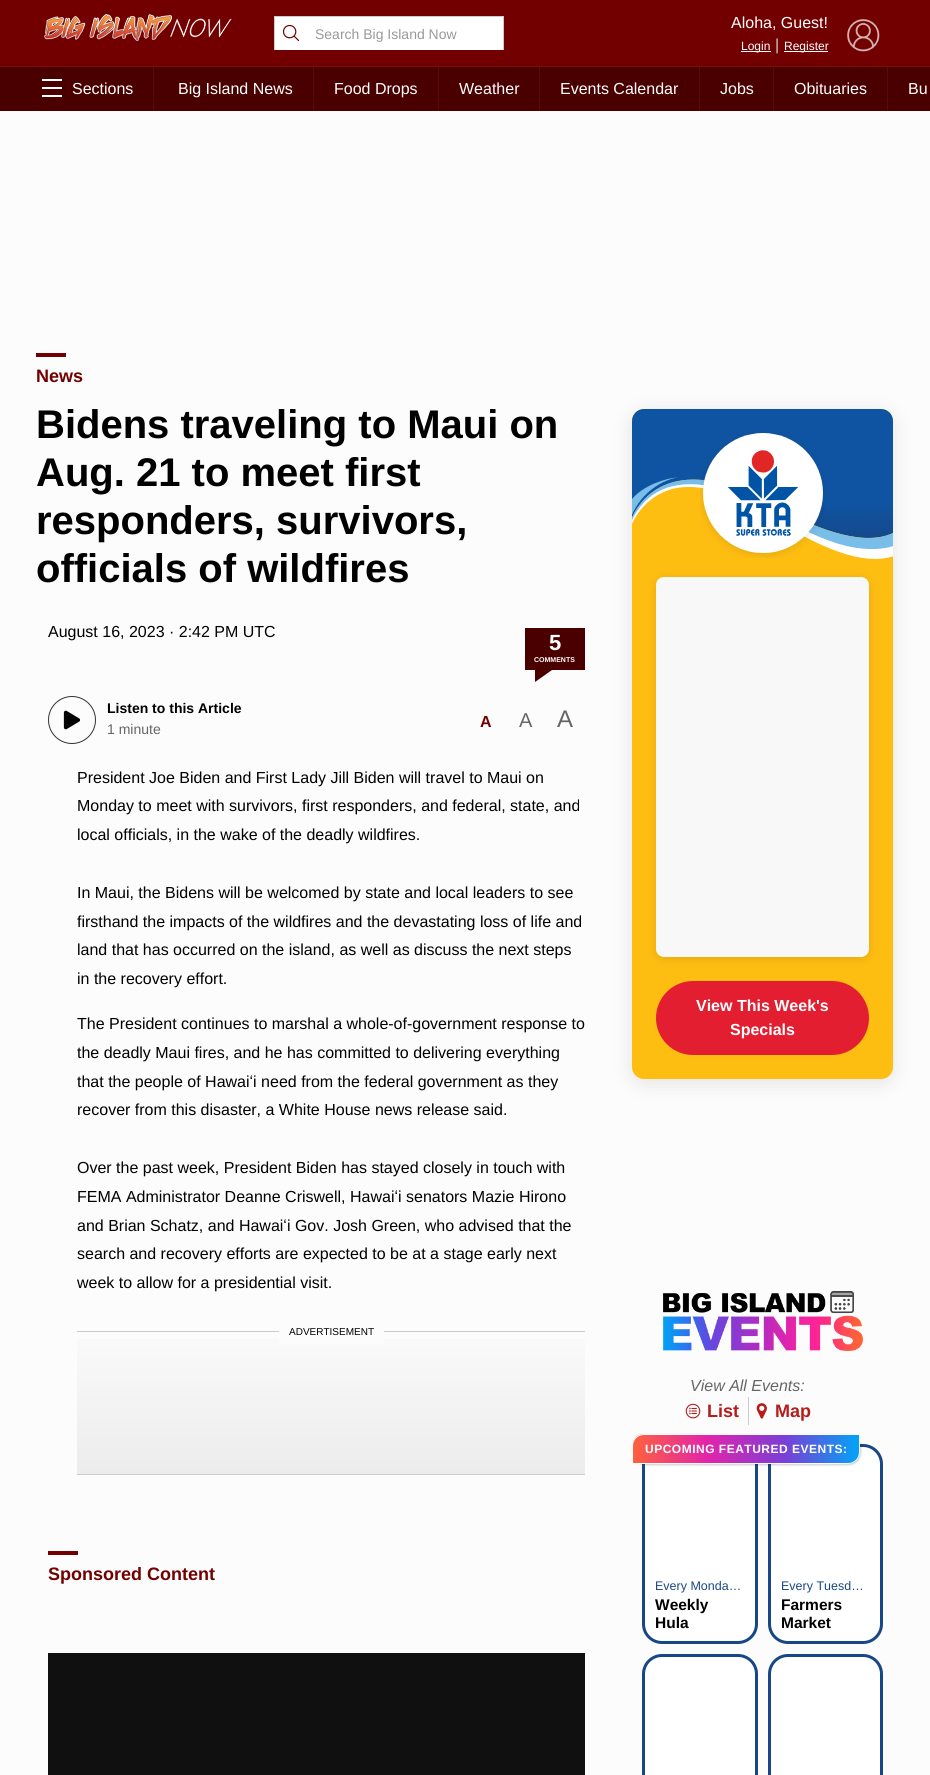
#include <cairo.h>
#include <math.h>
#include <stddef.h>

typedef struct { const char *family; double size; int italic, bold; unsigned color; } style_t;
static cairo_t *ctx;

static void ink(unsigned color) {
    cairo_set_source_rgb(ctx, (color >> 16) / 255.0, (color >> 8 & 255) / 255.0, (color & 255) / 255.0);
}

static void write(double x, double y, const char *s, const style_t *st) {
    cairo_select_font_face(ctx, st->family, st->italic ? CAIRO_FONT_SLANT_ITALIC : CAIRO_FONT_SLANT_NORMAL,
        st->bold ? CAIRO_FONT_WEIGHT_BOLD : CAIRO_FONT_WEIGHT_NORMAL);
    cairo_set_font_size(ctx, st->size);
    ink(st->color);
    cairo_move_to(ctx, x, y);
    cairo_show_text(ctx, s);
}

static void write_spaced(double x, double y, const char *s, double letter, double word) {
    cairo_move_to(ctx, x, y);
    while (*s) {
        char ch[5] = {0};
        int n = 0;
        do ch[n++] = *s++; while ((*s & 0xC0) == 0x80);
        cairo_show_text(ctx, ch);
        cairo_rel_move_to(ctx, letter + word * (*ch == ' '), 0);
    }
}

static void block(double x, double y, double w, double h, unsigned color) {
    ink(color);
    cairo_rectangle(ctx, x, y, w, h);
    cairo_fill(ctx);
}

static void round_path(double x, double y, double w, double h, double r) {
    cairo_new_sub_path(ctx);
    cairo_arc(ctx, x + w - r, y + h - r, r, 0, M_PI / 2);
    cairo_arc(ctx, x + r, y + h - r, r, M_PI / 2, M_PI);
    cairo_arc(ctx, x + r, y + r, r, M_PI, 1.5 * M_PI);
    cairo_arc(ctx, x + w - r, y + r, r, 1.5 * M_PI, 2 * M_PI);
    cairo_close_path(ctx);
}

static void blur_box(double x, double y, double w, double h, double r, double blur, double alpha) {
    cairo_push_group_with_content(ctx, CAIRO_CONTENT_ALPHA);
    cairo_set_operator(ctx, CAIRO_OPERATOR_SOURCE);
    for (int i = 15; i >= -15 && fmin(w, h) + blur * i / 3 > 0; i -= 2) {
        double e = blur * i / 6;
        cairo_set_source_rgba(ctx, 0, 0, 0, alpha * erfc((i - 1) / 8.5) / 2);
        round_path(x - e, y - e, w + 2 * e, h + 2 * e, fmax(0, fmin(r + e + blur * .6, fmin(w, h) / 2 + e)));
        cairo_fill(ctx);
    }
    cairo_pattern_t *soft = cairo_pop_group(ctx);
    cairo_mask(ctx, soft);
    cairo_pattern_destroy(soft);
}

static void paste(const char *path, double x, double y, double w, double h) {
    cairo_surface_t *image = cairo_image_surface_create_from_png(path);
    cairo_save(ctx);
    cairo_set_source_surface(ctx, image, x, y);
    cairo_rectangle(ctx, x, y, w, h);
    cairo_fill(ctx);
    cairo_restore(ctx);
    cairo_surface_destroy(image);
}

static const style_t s1 = {"Liberation Sans", 14, 0, 0, 0x999999};
static const style_t s2 = {"Liberation Sans", 16, 0, 0, 0xffffff};
static const style_t s3 = {"Liberation Sans", 12, 0, 0, 0xffffff};
static const style_t s4 = {"Liberation Sans", 16, 0, 0, 0xcccccc};
static const style_t s5 = {"Liberation Sans", 18, 0, 1, 0x730000};
static const style_t s6 = {"Liberation Sans", 40, 0, 1, 0x000000};
static const style_t s7 = {"Liberation Sans", 16, 0, 0, 0x000000};
static const style_t s8 = {"Liberation Sans", 22, 0, 1, 0xffffff};
static const style_t s9 = {"Liberation Sans", 7, 0, 1, 0xffffff};
static const style_t s10 = {"Liberation Sans", 14, 0, 1, 0x000000};
static const style_t s11 = {"Liberation Sans", 14, 0, 0, 0x666666};
static const style_t s12 = {"Liberation Sans", 16, 0, 1, 0x730000};
static const style_t s13 = {"Liberation Sans", 20, 0, 0, 0x666666};
static const style_t s14 = {"Liberation Sans", 24, 0, 0, 0x666666};
static const style_t s15 = {"Liberation Sans", 10, 0, 0, 0x000000};
static const style_t s16 = {"Liberation Sans", 16, 0, 1, 0xffffff};
static const style_t s17 = {"Liberation Sans", 16, 1, 0, 0x666666};
static const style_t s18 = {"Liberation Sans", 18, 0, 1, 0xb71c1c};
static const style_t s19 = {"Liberation Sans", 12.5, 0, 0, 0x184787};
static const style_t s20 = {"Liberation Sans", 15.5, 0, 1, 0x000000};

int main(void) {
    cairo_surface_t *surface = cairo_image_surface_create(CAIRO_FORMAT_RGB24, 930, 1775);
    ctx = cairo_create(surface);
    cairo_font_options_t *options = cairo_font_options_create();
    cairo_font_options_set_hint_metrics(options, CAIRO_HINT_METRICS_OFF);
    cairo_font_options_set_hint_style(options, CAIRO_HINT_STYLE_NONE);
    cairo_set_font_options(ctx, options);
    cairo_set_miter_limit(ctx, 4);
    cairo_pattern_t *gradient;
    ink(0xfcfcfc);
    cairo_paint(ctx);
    block(0, 0, 930, 66, 0x730000);
    block(0, 66, 930, 1, 0x7a0d0d);
    paste("pic1.png", 44, 14, 188, 27);
    block(275, 17, 228, 1, 0xffffff);
    cairo_rectangle(ctx, 274.5, 16.5, 229, 33);
    ink(0xcccccc);
    cairo_set_line_width(ctx, 1);
    cairo_stroke(ctx);
    block(275, 18, 228, 32, 0xffffff);
    paste("pic2.png", 282, 24, 18, 18);
    write(315, 39, "Search Big Island Now", &s1);
    write(731, 28, "Aloha, Guest!", &s2);
    block(741, 51, 30, 1, 0xffffff);
    write(741, 50, "Login", &s3);
    write(775, 50, "|", &s4);
    block(784, 51, 44, 1, 0xffffff);
    write(784, 50, "Register", &s3);
    paste("pic3.png", 847, 19, 33, 33);
    block(0, 67, 930, 44, 0x4b0000);
    block(153, 67, 1, 44, 0x540d0d);
    block(42, 79, 20, 2, 0xffffff);
    block(42, 87, 20, 2, 0xffffff);
    block(42, 95, 20, 2, 0xffffff);
    write(72, 94, "Sections", &s2);
    block(313, 67, 1, 44, 0x540d0d);
    write(178, 94, "Big Island News", &s2);
    block(438, 67, 1, 44, 0x540d0d);
    write(334, 94, "Food Drops", &s2);
    block(539, 67, 1, 44, 0x540d0d);
    write(459, 94, "Weather", &s2);
    block(699, 67, 1, 44, 0x540d0d);
    write(560, 94, "Events Calendar", &s2);
    block(773, 67, 1, 44, 0x540d0d);
    write(720, 94, "Jobs", &s2);
    block(887, 67, 1, 44, 0x540d0d);
    write(794, 94, "Obituaries", &s2);
    write(908, 94, "Bu", &s2);
    block(36, 353, 30, 4, 0x730000);
    write(36, 382, "News", &s5);
    write(36, 438, "Bidens traveling to Maui on", &s6);
    write(36, 486, "Aug. 21 to meet first", &s6);
    write(36, 534, "responders, survivors,", &s6);
    write(36, 582, "officials of wildfires", &s6);
    write(48, 637, "August 16, 2023 · 2:42 PM UTC", &s7);
    ink(0x4b0000);
    cairo_new_path(ctx);
    cairo_move_to(ctx, 585, 628);
    cairo_line_to(ctx, 525, 628);
    cairo_line_to(ctx, 525, 670);
    cairo_line_to(ctx, 535, 670);
    cairo_line_to(ctx, 535, 682);
    cairo_line_to(ctx, 552, 670);
    cairo_line_to(ctx, 585, 670);
    cairo_close_path(ctx);
    cairo_fill(ctx);
    write(549, 650, "5", &s8);
    write(534, 662, "COMMENTS", &s9);
    cairo_new_path(ctx);
    cairo_arc(ctx, 72, 720, 23.5, 0, 2 * M_PI);
    ink(0x333333);
    cairo_stroke(ctx);
    paste("pic4.png", 63, 710, 18, 20);
    write(107, 713, "Listen to this Article", &s10);
    write(107, 734, "1 minute", &s11);
    write(480, 727, "A", &s12);
    write(519, 727, "A", &s13);
    write(557, 727, "A", &s14);
    write(77, 783, "President Joe Biden and First Lady Jill Biden will travel to Maui on", &s7);
    write(77, 811, "Monday to meet with survivors, first responders, and federal, state, and", &s7);
    write(77, 840, "local officials, in the wake of the deadly wildfires.", &s7);
    write(77, 898, "In Maui, the Bidens will be welcomed by state and local leaders to see", &s7);
    write(77, 927, "firsthand the impacts of the wildfires and the devastating loss of life and", &s7);
    write(77, 955, "land that has occurred on the island, as well as discuss the next steps", &s7);
    write(77, 984, "in the recovery effort.", &s7);
    write(77, 1029, "The President continues to marshal a whole-of-government response to", &s7);
    write(77, 1058, "the deadly Maui fires, and he has committed to delivering everything", &s7);
    write(77, 1087, "that the people of Hawaiʻi need from the federal government as they", &s7);
    write(77, 1115, "recover from this disaster, a White House news release said.", &s7);
    write(77, 1173, "Over the past week, President Biden has stayed closely in touch with", &s7);
    write(77, 1202, "FEMA Administrator Deanne Criswell, Hawaiʻi senators Mazie Hirono", &s7);
    write(77, 1231, "and Brian Schatz, and Hawaiʻi Gov. Josh Green, who advised that the", &s7);
    write(77, 1259, "search and recovery efforts are expected to be at a stage early next", &s7);
    write(77, 1288, "week to allow for a presidential visit.", &s7);
    gradient = cairo_pattern_create_linear(331, 1314, 331, 1474);
    cairo_pattern_add_color_stop_rgba(gradient, 0, 0.988, 0.988, 0.988, 1);
    cairo_pattern_add_color_stop_rgba(gradient, 1, 0.925, 0.925, 0.925, 1);
    cairo_set_source(ctx, gradient);
    cairo_pattern_destroy(gradient);
    cairo_rectangle(ctx, 77, 1339, 508, 135);
    cairo_fill(ctx);
    block(77, 1474, 508, 1, 0xcccccc);
    block(77, 1331, 508, 1, 0xcccccc);
    block(279, 1331, 105, 13, 0xfcfcfc);
    write(289, 1335, "ADVERTISEMENT", &s15);
    block(48, 1551, 30, 4, 0x730000);
    write(48, 1580, "Sponsored Content", &s5);
    block(48, 1653, 537, 122, 0x101010);
    ink(0x000000);
    blur_box(632, 413, 261, 670, 12, 10, 0.1);
    ink(0xfebd11);
    round_path(632, 409, 261, 670, 12);
    cairo_fill(ctx);
    paste("pic5.png", 632, 409, 261, 150);
    paste("pic6.png", 700, 432, 126, 126);
    ink(0x000000);
    blur_box(656, 579, 213, 380, 8, 5, 0.1);
    ink(0xf8f8f8);
    round_path(656, 577, 213, 380, 8);
    cairo_fill(ctx);
    ink(0xe41e31);
    round_path(656, 981, 213, 74, 37);
    cairo_fill(ctx);
    write(696, 1011, "View This Week's", &s16);
    write(730, 1035, "Specials", &s16);
    paste("pic7.png", 663, 1291, 200, 60);
    write(690, 1391, "View All Events:", &s17);
    block(748, 1397, 1, 28, 0xcccccc);
    paste("pic8.png", 685, 1403, 16, 16);
    write(707, 1417, "List", &s18);
    paste("pic9.png", 756, 1403, 11, 16);
    write(775, 1417, "Map", &s18);
    ink(0xffffff);
    round_path(643.5, 1445.5, 113, 197, 18.5);
    cairo_fill_preserve(ctx);
    ink(0x184787);
    cairo_set_line_width(ctx, 3);
    cairo_stroke(ctx);
    ink(0xffffff);
    round_path(769.5, 1445.5, 112, 197, 18.5);
    cairo_fill_preserve(ctx);
    ink(0x184787);
    cairo_stroke(ctx);
    ink(0x000000);
    blur_box(633, 1435, 228, 30, 12, 1, 0.2);
    cairo_save(ctx);
    cairo_new_path(ctx);
    cairo_move_to(ctx, 644, 1434);
    cairo_line_to(ctx, 860, 1434);
    cairo_line_to(ctx, 860, 1452);
    cairo_curve_to(ctx, 860, 1458.5, 854.5, 1464, 848, 1464);
    cairo_line_to(ctx, 632, 1464);
    cairo_line_to(ctx, 632, 1446);
    cairo_curve_to(ctx, 632, 1439.5, 637.5, 1434, 644, 1434);
    cairo_close_path(ctx);
    cairo_clip(ctx);
    gradient = cairo_pattern_create_linear(859, 1449, 633, 1449);
    cairo_pattern_add_color_stop_rgba(gradient, 0, 0.008, 0.639, 0.965, 1);
    cairo_pattern_add_color_stop_rgba(gradient, 0.33, 0.478, 0.247, 0.843, 1);
    cairo_pattern_add_color_stop_rgba(gradient, 0.67, 0.886, 0.141, 0.671, 1);
    cairo_pattern_add_color_stop_rgba(gradient, 1, 1, 0.38, 0.235, 1);
    cairo_set_source(ctx, gradient);
    cairo_pattern_destroy(gradient);
    cairo_rectangle(ctx, 633, 1434, 226, 30);
    cairo_fill(ctx);
    cairo_restore(ctx);
    cairo_new_path(ctx);
    cairo_move_to(ctx, 644, 1434.5);
    cairo_line_to(ctx, 859.5, 1434.5);
    cairo_line_to(ctx, 859.5, 1452);
    cairo_curve_to(ctx, 859.5, 1458.5, 854.5, 1463.5, 848, 1463.5);
    cairo_line_to(ctx, 632.5, 1463.5);
    cairo_line_to(ctx, 632.5, 1446);
    cairo_curve_to(ctx, 632.5, 1439.5, 637.5, 1434.5, 644, 1434.5);
    cairo_close_path(ctx);
    ink(0xfcfcfc);
    cairo_set_line_width(ctx, 1);
    cairo_stroke(ctx);
    cairo_set_font_size(ctx, 12);
    ink(0xffffff);
    write_spaced(645, 1453, "UPCOMING FEATURED EVENTS:", 0.5, 0);
    write(655, 1590, "Every Monda…", &s19);
    write(655, 1610, "Weekly", &s20);
    write(655, 1628, "Hula", &s20);
    write(781, 1590, "Every Tuesd…", &s19);
    write(781, 1610, "Farmers", &s20);
    write(781, 1628, "Market", &s20);
    ink(0xffffff);
    round_path(643.5, 1655.5, 113, 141, 18.5);
    cairo_fill_preserve(ctx);
    ink(0x184787);
    cairo_set_line_width(ctx, 3);
    cairo_stroke(ctx);
    ink(0xffffff);
    round_path(769.5, 1655.5, 112, 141, 18.5);
    cairo_fill_preserve(ctx);
    ink(0x184787);
    cairo_stroke(ctx);
    cairo_surface_write_to_png(surface, "screenshot.png");
    cairo_font_options_destroy(options);
    cairo_destroy(ctx);
    cairo_surface_destroy(surface);
    return 0;
}
